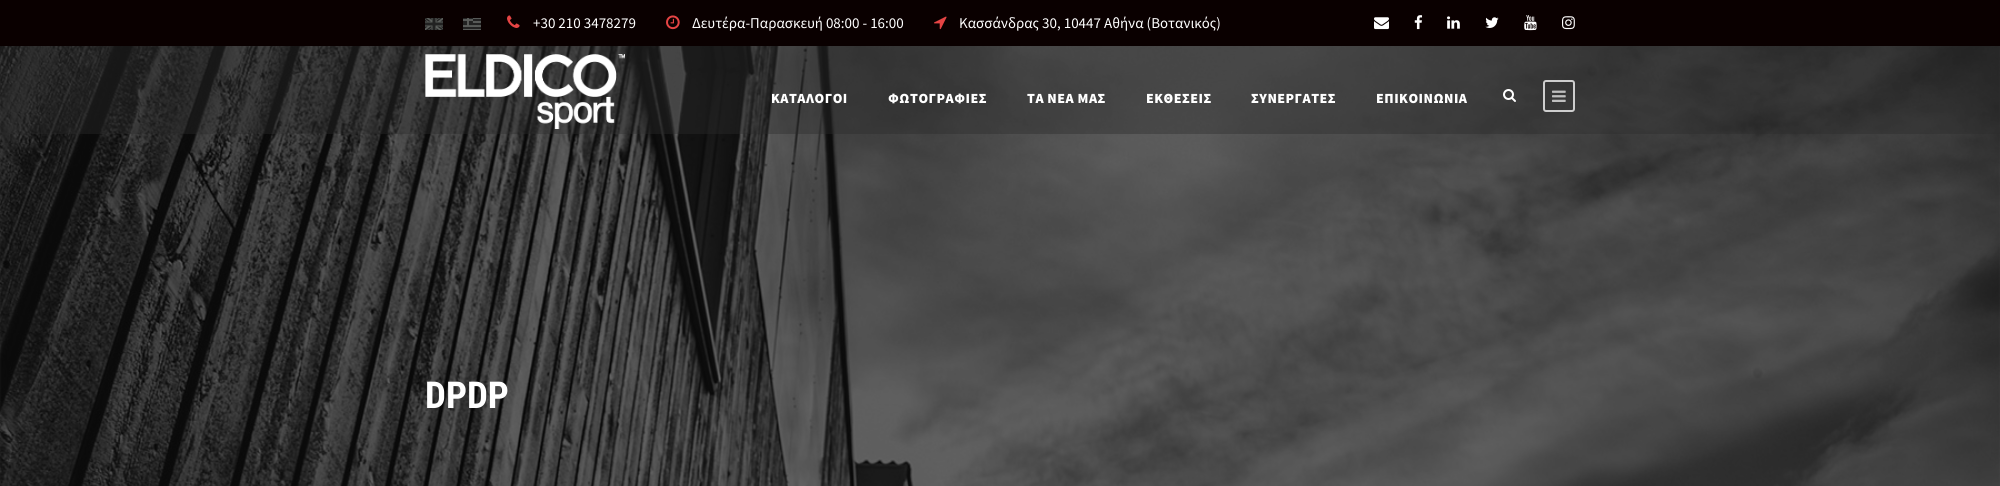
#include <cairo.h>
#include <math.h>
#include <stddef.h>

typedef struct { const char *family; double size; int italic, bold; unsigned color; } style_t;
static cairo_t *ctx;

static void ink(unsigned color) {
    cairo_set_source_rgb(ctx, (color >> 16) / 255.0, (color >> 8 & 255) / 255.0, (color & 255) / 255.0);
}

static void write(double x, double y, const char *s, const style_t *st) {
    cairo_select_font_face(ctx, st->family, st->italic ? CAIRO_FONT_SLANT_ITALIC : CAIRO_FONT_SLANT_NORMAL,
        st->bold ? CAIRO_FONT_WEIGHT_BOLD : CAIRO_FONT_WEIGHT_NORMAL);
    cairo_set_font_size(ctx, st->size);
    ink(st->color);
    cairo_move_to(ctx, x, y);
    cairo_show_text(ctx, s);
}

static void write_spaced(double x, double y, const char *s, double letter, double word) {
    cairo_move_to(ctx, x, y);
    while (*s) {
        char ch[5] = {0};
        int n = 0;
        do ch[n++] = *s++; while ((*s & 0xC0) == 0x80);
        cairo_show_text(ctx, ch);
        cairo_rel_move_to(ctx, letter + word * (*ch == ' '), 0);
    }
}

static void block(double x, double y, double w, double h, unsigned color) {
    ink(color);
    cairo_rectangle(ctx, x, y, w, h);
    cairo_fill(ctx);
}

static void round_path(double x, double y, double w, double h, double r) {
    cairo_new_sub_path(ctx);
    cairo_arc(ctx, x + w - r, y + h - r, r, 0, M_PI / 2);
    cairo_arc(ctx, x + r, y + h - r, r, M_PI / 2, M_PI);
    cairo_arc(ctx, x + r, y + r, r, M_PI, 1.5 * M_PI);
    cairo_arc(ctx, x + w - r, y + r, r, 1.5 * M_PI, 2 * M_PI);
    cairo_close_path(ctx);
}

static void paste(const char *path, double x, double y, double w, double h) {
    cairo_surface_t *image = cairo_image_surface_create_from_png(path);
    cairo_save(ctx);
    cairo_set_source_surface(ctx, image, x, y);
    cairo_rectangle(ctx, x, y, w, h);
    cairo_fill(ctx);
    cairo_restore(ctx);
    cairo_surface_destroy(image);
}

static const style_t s1 = {"Source Sans Pro", 15, 0, 0, 0xffffff};
static const style_t s2 = {"Roboto Condensed", 37, 0, 1, 0xffffff};

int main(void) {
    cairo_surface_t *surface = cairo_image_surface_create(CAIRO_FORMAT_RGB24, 2000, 486);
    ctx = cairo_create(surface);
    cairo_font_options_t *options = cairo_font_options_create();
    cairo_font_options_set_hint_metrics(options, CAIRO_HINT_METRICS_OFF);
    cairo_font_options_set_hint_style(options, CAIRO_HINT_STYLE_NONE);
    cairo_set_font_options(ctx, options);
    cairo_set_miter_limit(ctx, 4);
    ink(0xffffff);
    cairo_paint(ctx);
    block(0, 0, 2000, 46, 0x0a0000);
    paste("pic1.png", 425, 18, 18, 12);
    paste("pic2.png", 463, 18, 18, 12);
    paste("pic3.png", 507, 15, 13, 13);
    write(533, 28, "+30 210 3478279", &s1);
    paste("pic4.png", 666, 15, 14, 15);
    write(692, 28, "Δευτέρα-Παρασκευή 08:00 - 16:00", &s1);
    paste("pic5.png", 934, 16, 13, 14);
    write(959, 28, "Κασσάνδρας 30, 10447 Αθήνα (Βοτανικός)", &s1);
    paste("pic6.png", 1374, 17, 15, 13);
    paste("pic7.png", 1414, 15, 9, 15);
    paste("pic8.png", 1447, 16, 13, 13);
    paste("pic9.png", 1485, 17, 14, 11);
    paste("pic10.png", 1524, 15, 13, 16);
    paste("pic11.png", 1562, 16, 13, 14);
    paste("pic15.png", 0, 46, 2000, 440);
    cairo_set_source_rgba(ctx, 0.169, 0.169, 0.169, 0.4);
    cairo_rectangle(ctx, 0, 46, 2000, 88);
    cairo_fill(ctx);
    paste("pic12.png", 425, 54, 200, 75);
    cairo_select_font_face(ctx, "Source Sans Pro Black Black", CAIRO_FONT_SLANT_NORMAL, CAIRO_FONT_WEIGHT_NORMAL);
    cairo_set_font_size(ctx, 14);
    ink(0xffffff);
    write_spaced(771, 103, "ΚΑΤΑΛΟΓΟΙ", 0.5, 0);
    write_spaced(888, 103, "ΦΩΤΟΓΡΑΦΙΕΣ", 0.5, 0);
    write_spaced(1027, 103, "ΤΑ ΝΕΑ ΜΑΣ", 0.5, 0);
    write_spaced(1146, 103, "ΕΚΘΕΣΕΙΣ", 0.5, 0);
    write_spaced(1251, 103, "ΣΥΝΕΡΓΑΤΕΣ", 0.5, 0);
    write_spaced(1376, 103, "ΕΠΙΚΟΙΝΩΝΙΑ", 0.5, 0);
    paste("pic13.png", 1503, 89, 13, 13);
    round_path(1544, 81, 30, 30, 2);
    ink(0xcecece);
    cairo_stroke(ctx);
    paste("pic14.png", 1552, 90, 14, 12);
    write(425, 408, "DPDP", &s2);
    cairo_surface_write_to_png(surface, "screenshot.png");
    cairo_font_options_destroy(options);
    cairo_destroy(ctx);
    cairo_surface_destroy(surface);
    return 0;
}
